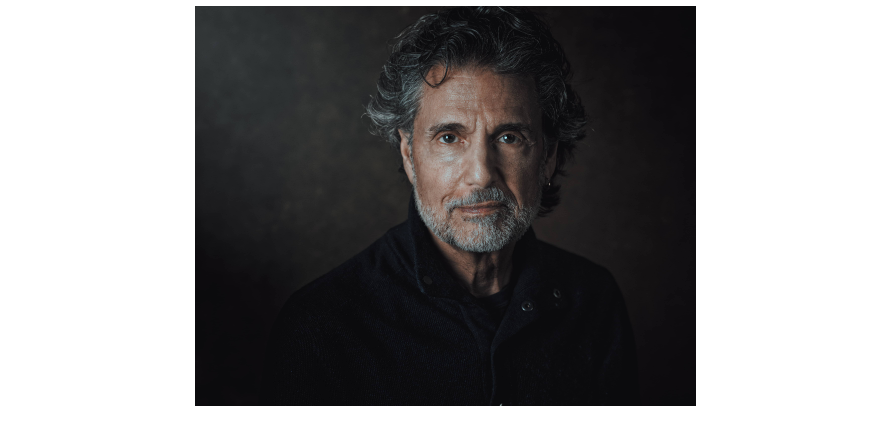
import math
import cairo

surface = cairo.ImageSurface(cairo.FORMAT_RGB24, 891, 445)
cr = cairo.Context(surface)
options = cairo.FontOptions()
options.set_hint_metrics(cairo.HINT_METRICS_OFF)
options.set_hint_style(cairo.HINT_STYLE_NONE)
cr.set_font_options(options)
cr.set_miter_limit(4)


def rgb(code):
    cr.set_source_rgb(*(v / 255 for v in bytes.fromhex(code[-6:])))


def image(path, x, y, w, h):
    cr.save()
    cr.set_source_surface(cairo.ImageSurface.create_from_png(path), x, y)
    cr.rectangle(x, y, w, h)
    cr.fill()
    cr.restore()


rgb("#ffffff")
cr.paint()
image("img/1.png", 195, 6, 501, 400)
surface.write_to_png("page.png")
